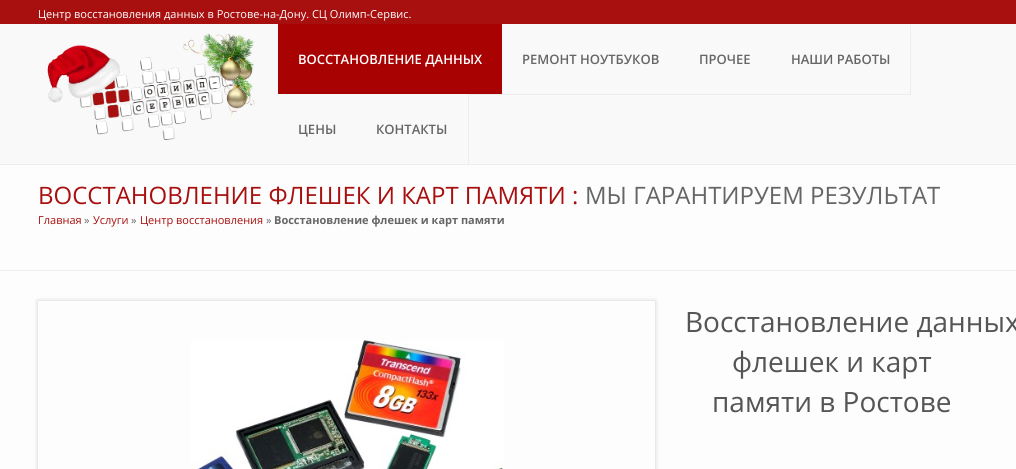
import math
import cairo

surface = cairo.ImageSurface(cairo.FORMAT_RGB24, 1016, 469)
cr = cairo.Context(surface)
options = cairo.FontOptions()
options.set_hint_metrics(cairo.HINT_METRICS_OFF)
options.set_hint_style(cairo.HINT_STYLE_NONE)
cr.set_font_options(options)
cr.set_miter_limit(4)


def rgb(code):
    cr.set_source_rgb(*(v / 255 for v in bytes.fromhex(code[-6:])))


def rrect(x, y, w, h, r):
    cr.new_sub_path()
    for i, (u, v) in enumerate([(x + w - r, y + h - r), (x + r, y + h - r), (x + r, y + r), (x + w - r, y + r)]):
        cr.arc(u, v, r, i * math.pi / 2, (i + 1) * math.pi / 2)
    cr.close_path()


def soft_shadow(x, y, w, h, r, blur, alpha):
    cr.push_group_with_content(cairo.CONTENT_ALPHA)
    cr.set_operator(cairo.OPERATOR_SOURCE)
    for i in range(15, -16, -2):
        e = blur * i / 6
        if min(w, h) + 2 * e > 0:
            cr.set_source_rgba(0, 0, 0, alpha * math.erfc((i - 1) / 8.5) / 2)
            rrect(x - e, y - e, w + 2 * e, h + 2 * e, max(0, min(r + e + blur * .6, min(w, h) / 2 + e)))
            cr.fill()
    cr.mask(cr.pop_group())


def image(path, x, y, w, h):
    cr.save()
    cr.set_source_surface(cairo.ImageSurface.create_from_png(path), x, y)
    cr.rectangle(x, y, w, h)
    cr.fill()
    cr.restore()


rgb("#fdfdfd")
cr.paint()
rgb("#a81010")
cr.rectangle(0, 0, 1016, 24)
cr.fill()
rgb("#f9f9f9")
cr.rectangle(0, 24, 1016, 140)
cr.fill()
image("img/1.png", 47, 33, 208, 107)
rgb("#a80202")
cr.rectangle(278, 24, 224, 70)
cr.fill()
rgb("#ededed")
cr.new_path()
cr.move_to(279, 94)
cr.line_to(279, 95)
cr.line_to(503, 95)
cr.line_to(503, 25)
cr.line_to(502, 25)
cr.line_to(502, 94)
cr.close_path()
cr.fill()
rgb("#f9f9f9")
cr.rectangle(502, 25, 1, 69)
cr.fill()
rgb("#ededed")
cr.new_path()
cr.move_to(503, 94)
cr.line_to(503, 95)
cr.line_to(680, 95)
cr.line_to(680, 25)
cr.line_to(679, 25)
cr.line_to(679, 94)
cr.close_path()
cr.fill()
rgb("#f9f9f9")
cr.rectangle(679, 25, 1, 69)
cr.fill()
rgb("#ededed")
cr.new_path()
cr.move_to(680, 94)
cr.line_to(680, 95)
cr.line_to(772, 95)
cr.line_to(772, 25)
cr.line_to(771, 25)
cr.line_to(771, 94)
cr.close_path()
cr.fill()
rgb("#f9f9f9")
cr.rectangle(771, 25, 1, 69)
cr.fill()
rgb("#ededed")
cr.new_path()
cr.move_to(772, 94)
cr.line_to(772, 95)
cr.line_to(911, 95)
cr.line_to(911, 25)
cr.line_to(910, 25)
cr.line_to(910, 94)
cr.close_path()
cr.fill()
rgb("#f9f9f9")
cr.rectangle(279, 94, 77, 1)
cr.fill()
rgb("#ededed")
cr.rectangle(0, 164, 1016, 1)
cr.fill()
cr.new_path()
cr.move_to(279, 164)
cr.line_to(279, 165)
cr.line_to(357, 165)
cr.line_to(357, 95)
cr.line_to(356, 95)
cr.line_to(356, 164)
cr.close_path()
cr.fill()
rgb("#f9f9f9")
cr.rectangle(356, 94, 112, 70)
cr.fill()
rgb("#ededed")
cr.new_path()
cr.move_to(357, 164)
cr.line_to(357, 165)
cr.line_to(469, 165)
cr.line_to(469, 95)
cr.line_to(468, 95)
cr.line_to(468, 164)
cr.close_path()
cr.fill()
cr.rectangle(0, 270, 1016, 1)
cr.fill()
cr.save()
cr.set_fill_rule(cairo.FILL_RULE_EVEN_ODD)
cr.new_path()
cr.move_to(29, 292)
cr.line_to(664, 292)
cr.line_to(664, 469)
cr.line_to(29, 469)
cr.close_path()
cr.move_to(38, 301)
cr.line_to(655, 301)
cr.line_to(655, 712)
cr.line_to(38, 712)
cr.close_path()
cr.clip()
rgb("#000000")
soft_shadow(38, 301, 617, 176, 0, 2.5, 0.1)
soft_shadow(38, 301, 617, 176, 0, 2.5, 0.1)
cr.restore()
image("img/2.png", 191, 340, 313, 129)
cr.select_font_face("Open Sans")
cr.set_font_size(11)
rgb("#ffffff")
cr.move_to(38, 18)
cr.show_text("Центр восстановления данных в Ростове-на-Дону. СЦ Олимп-Сервис.")
cr.select_font_face("Open Sans SemiBold")
cr.set_font_size(13)
cr.move_to(298, 64)
cr.show_text("ВОССТАНОВЛЕНИЕ ДАННЫХ")
rgb("#666666")
for x, y, s in [
    (522, 64, "РЕМОНТ НОУТБУКОВ"),
    (699, 64, "ПРОЧЕЕ"),
    (791, 64, "НАШИ РАБОТЫ"),
    (298, 134, "ЦЕНЫ"),
    (376, 134, "КОНТАКТЫ"),
]:
    cr.move_to(x, y)
    cr.show_text(s)
cr.select_font_face("Open Sans")
cr.set_font_size(24)
rgb("#a81010")
cr.move_to(38, 204)
cr.show_text("ВОССТАНОВЛЕНИЕ ФЛЕШЕК И КАРТ ПАМЯТИ :")
rgb("#666666")
cr.move_to(585, 204)
cr.show_text("МЫ ГАРАНТИРУЕМ РЕЗУЛЬТАТ")
cr.set_font_size(11)
rgb("#a81010")
cr.move_to(38, 224)
cr.show_text("Главная")
rgb("#666666")
cr.move_to(84, 224)
cr.show_text("»")
rgb("#a81010")
cr.move_to(93, 224)
cr.show_text("Услуги")
rgb("#666666")
cr.move_to(131, 224)
cr.show_text("»")
rgb("#a81010")
cr.move_to(140, 224)
cr.show_text("Центр восстановления")
rgb("#666666")
cr.move_to(266, 224)
cr.show_text("»")
cr.select_font_face("Open Sans", cairo.FONT_SLANT_NORMAL, cairo.FONT_WEIGHT_BOLD)
cr.move_to(274, 224)
cr.show_text("Восстановление флешек и карт памяти")
cr.select_font_face("Open Sans")
cr.set_font_size(28)
rgb("#555555")
for x, y, s in [
    (685, 332, "Восстановление данных"),
    (732, 372, "флешек и карт"),
    (712, 412, "памяти в Ростове"),
]:
    cr.move_to(x, y)
    cr.show_text(s)
surface.write_to_png("page.png")
